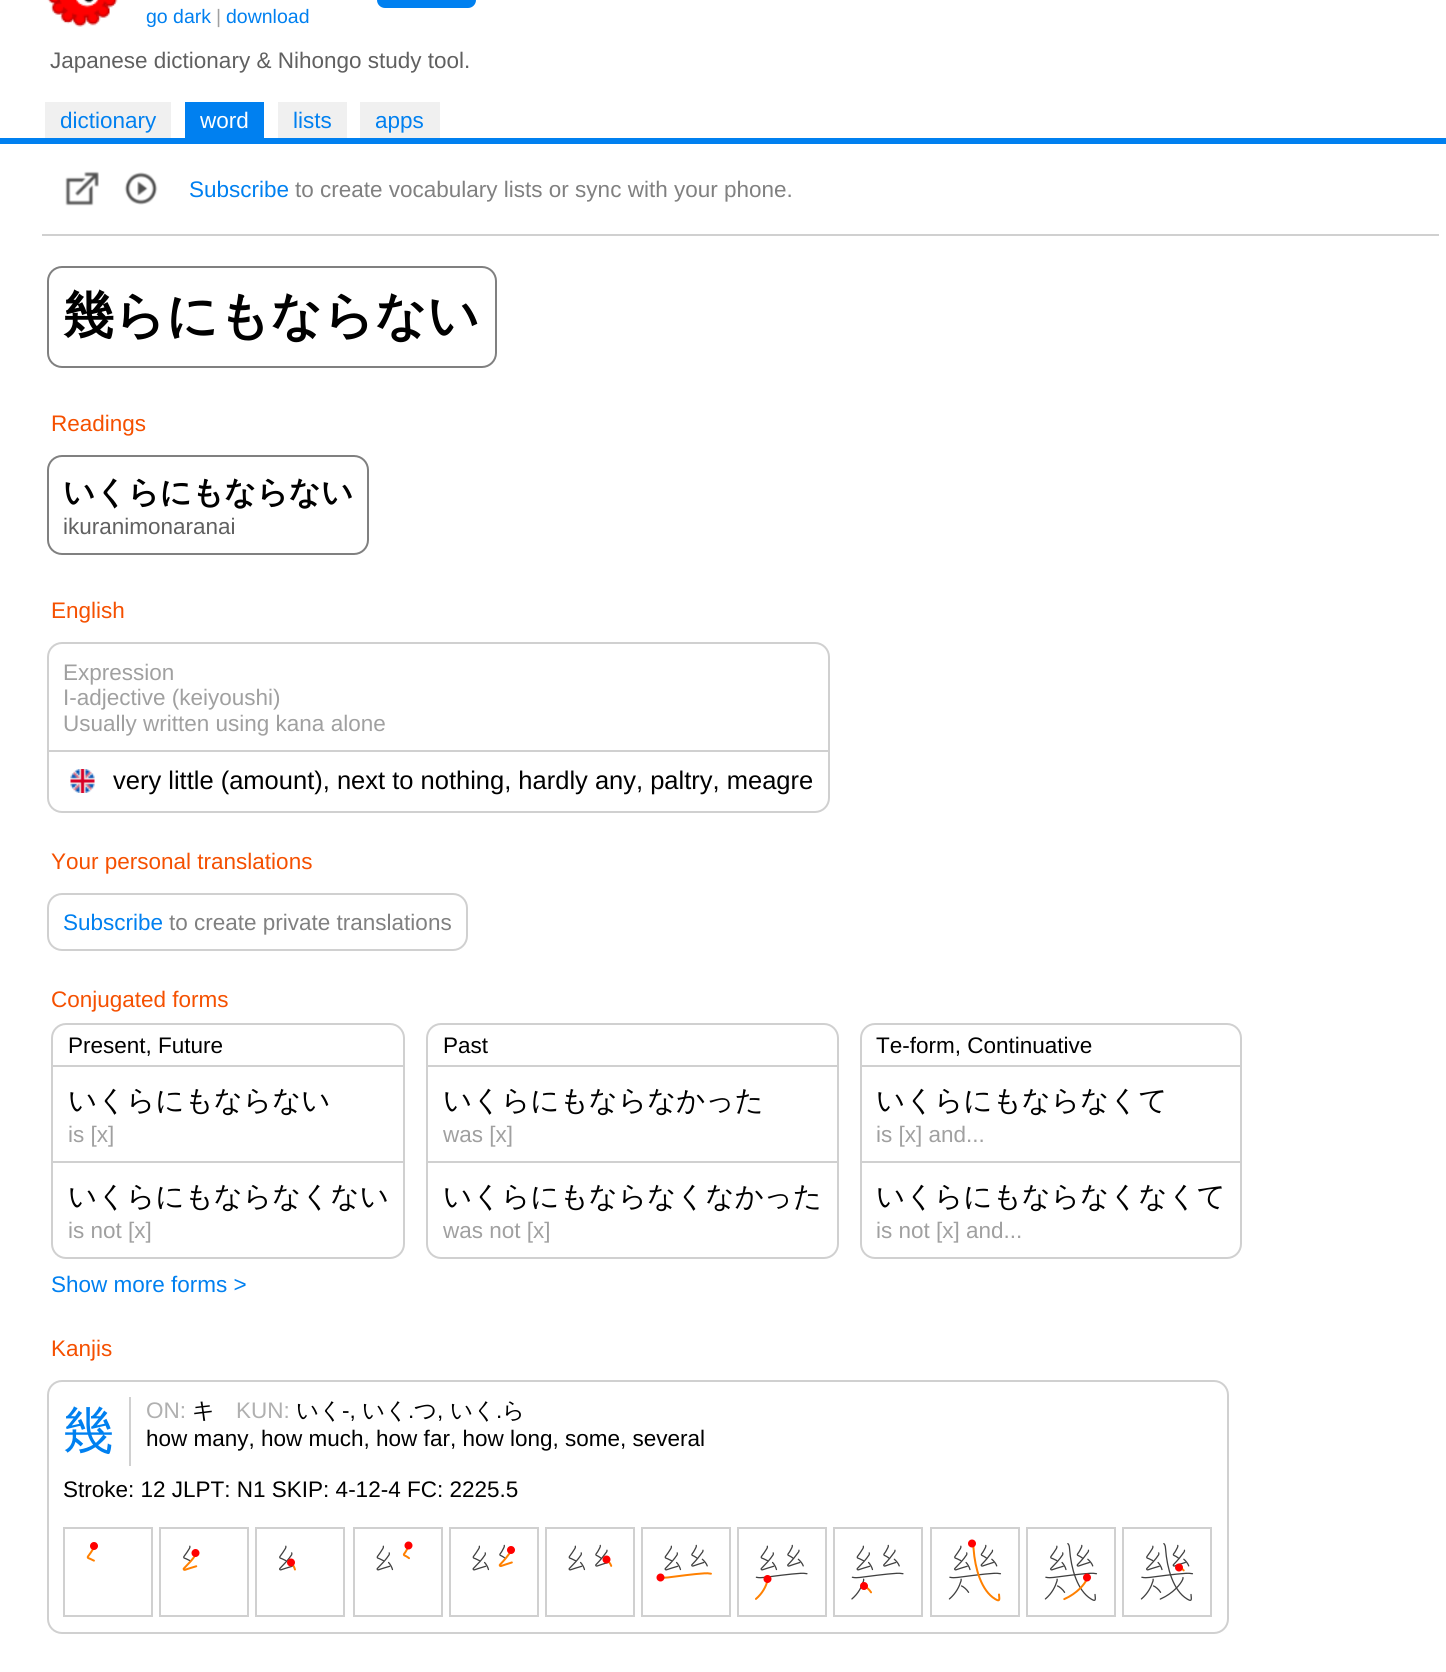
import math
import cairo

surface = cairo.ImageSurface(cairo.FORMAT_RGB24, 1446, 1672)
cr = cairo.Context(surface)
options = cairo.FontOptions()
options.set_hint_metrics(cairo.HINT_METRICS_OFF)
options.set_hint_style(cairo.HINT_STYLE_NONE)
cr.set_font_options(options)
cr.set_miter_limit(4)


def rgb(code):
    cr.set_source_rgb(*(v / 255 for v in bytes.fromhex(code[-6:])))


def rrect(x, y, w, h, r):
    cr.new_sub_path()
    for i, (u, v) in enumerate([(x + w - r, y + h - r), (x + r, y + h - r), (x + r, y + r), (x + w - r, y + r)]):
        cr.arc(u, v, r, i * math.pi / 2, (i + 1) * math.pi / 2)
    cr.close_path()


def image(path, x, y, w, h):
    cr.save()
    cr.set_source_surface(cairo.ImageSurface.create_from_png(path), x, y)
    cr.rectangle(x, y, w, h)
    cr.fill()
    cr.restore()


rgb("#ffffff")
cr.paint()
rgb("#0080f0")
cr.rectangle(0, 138, 1446, 6)
cr.fill()
rrect(377, -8, 99, 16, 8)
cr.fill()
image("img/1.png", 47, 0, 71, 27)
for x, y, w, h, color in [
    (45, 102, 126, 36, "#f0f0f0"),
    (185, 102, 79, 36, "#0080f0"),
    (278, 102, 69, 36, "#f0f0f0"),
    (360, 102, 80, 36, "#f0f0f0"),
    (42, 234, 1397, 2, "#d0d0d0"),
]:
    rgb(color)
    cr.rectangle(x, y, w, h)
    cr.fill()
image("img/2.png", 65, 171, 34, 35)
image("img/3.png", 124, 172, 34, 33)
rrect(48, 267, 448, 100, 14)
rgb("#808080")
cr.stroke()
rrect(48, 456, 320, 98, 14)
cr.stroke()
rrect(48, 643, 781, 169, 14)
rgb("#d0d0d0")
cr.stroke()
cr.rectangle(48, 750, 780, 2)
cr.fill()
image("img/4.png", 70, 769, 25, 24)
rrect(48, 894, 419, 56, 14)
cr.stroke()
rrect(52, 1024, 352, 234, 14)
cr.stroke()
cr.rectangle(53, 1065, 351, 2)
cr.fill()
cr.rectangle(53, 1161, 351, 2)
cr.fill()
rrect(427, 1024, 411, 234, 14)
cr.stroke()
cr.rectangle(428, 1065, 409, 2)
cr.fill()
cr.rectangle(428, 1161, 409, 2)
cr.fill()
rrect(861, 1024, 380, 234, 14)
cr.stroke()
cr.rectangle(861, 1065, 380, 2)
cr.fill()
cr.rectangle(861, 1161, 380, 2)
cr.fill()
rrect(48, 1381, 1180, 252, 14)
cr.stroke()
cr.rectangle(129, 1397, 2, 69)
cr.fill()
cr.rectangle(64, 1528, 88, 88)
cr.stroke()
image("img/5.png", 86, 1542, 12, 20)
cr.rectangle(160, 1528, 88, 88)
cr.stroke()
image("img/6.png", 182, 1545, 18, 26)
cr.rectangle(256, 1528, 88, 88)
cr.stroke()
image("img/7.png", 279, 1545, 17, 26)
cr.rectangle(354, 1528, 88, 88)
cr.stroke()
image("img/8.png", 376, 1541, 37, 30)
cr.rectangle(450, 1528, 88, 88)
cr.stroke()
image("img/9.png", 472, 1544, 43, 27)
cr.rectangle(546, 1528, 88, 88)
cr.stroke()
image("img/10.png", 568, 1544, 45, 27)
cr.rectangle(642, 1528, 88, 88)
cr.stroke()
image("img/11.png", 656, 1544, 56, 38)
cr.rectangle(738, 1528, 88, 88)
cr.stroke()
image("img/12.png", 755, 1544, 53, 56)
cr.rectangle(834, 1528, 88, 88)
cr.stroke()
image("img/13.png", 851, 1544, 53, 56)
cr.rectangle(931, 1528, 88, 88)
cr.stroke()
image("img/14.png", 948, 1539, 54, 63)
cr.rectangle(1027, 1528, 88, 88)
cr.stroke()
image("img/15.png", 1044, 1543, 54, 58)
cr.rectangle(1123, 1528, 88, 88)
cr.stroke()
image("img/16.png", 1140, 1543, 54, 58)
cr.select_font_face("Liberation Sans")
cr.set_font_size(19.5)
rgb("#0080f0")
cr.move_to(146, 23)
cr.show_text("go dark")
rgb("#a0a0a0")
cr.move_to(216, 23)
cr.show_text("|")
rgb("#0080f0")
cr.move_to(226, 23)
cr.show_text("download")
cr.set_font_size(22.5)
rgb("#606060")
cr.move_to(50, 68)
cr.show_text("Japanese dictionary & Nihongo study tool.")
rgb("#0080f0")
cr.move_to(60, 128)
cr.show_text("dictionary")
rgb("#ffffff")
cr.move_to(200, 128)
cr.show_text("word")
rgb("#0080f0")
for x, y, s in [
    (293, 128, "lists"),
    (375, 128, "apps"),
    (189, 197, "Subscribe"),
]:
    cr.move_to(x, y)
    cr.show_text(s)
rgb("#808080")
cr.move_to(295, 197)
cr.show_text("to create vocabulary lists or sync with your phone.")
cr.select_font_face("WenQuanYi Zen Hei", cairo.FONT_SLANT_NORMAL, cairo.FONT_WEIGHT_BOLD)
cr.set_font_size(51)
rgb("#000000")
cr.move_to(63, 333)
cr.show_text("幾らにもならない")
cr.select_font_face("Liberation Sans")
cr.set_font_size(22.5)
rgb("#f55000")
cr.move_to(51, 431)
cr.show_text("Readings")
cr.select_font_face("WenQuanYi Zen Hei", cairo.FONT_SLANT_NORMAL, cairo.FONT_WEIGHT_BOLD)
cr.set_font_size(31.5)
rgb("#000000")
cr.move_to(63, 503)
cr.show_text("いくらにもならない")
cr.select_font_face("Liberation Sans")
cr.set_font_size(22.5)
rgb("#606060")
cr.move_to(63, 534)
cr.show_text("ikuranimonaranai")
rgb("#f55000")
cr.move_to(51, 618)
cr.show_text("English")
rgb("#a0a0a0")
for x, y, s in [
    (63, 680, "Expression"),
    (63, 705, "I-adjective (keiyoushi)"),
    (63, 731, "Usually written using kana alone"),
]:
    cr.move_to(x, y)
    cr.show_text(s)
cr.set_font_size(25.5)
rgb("#000000")
cr.move_to(113, 789)
cr.show_text("very little (amount), next to nothing, hardly any, paltry, meagre")
cr.set_font_size(22.5)
rgb("#f55000")
cr.move_to(51, 869)
cr.show_text("Your personal translations")
rgb("#0080f0")
cr.move_to(63, 930)
cr.show_text("Subscribe")
rgb("#808080")
cr.move_to(169, 930)
cr.show_text("to create private translations")
rgb("#f55000")
cr.move_to(51, 1007)
cr.show_text("Conjugated forms")
rgb("#000000")
cr.move_to(68, 1053)
cr.show_text("Present, Future")
cr.select_font_face("WenQuanYi Zen Hei Medium")
cr.set_font_size(28.5)
cr.move_to(68, 1110)
cr.show_text("いくらにもならない")
cr.select_font_face("Liberation Sans")
cr.set_font_size(22.5)
rgb("#a0a0a0")
cr.move_to(68, 1142)
cr.show_text("is [x]")
cr.select_font_face("WenQuanYi Zen Hei Medium")
cr.set_font_size(28.5)
rgb("#000000")
cr.move_to(68, 1206)
cr.show_text("いくらにもならなくない")
cr.select_font_face("Liberation Sans")
cr.set_font_size(22.5)
rgb("#a0a0a0")
cr.move_to(68, 1238)
cr.show_text("is not [x]")
rgb("#000000")
cr.move_to(443, 1053)
cr.show_text("Past")
cr.select_font_face("WenQuanYi Zen Hei Medium")
cr.set_font_size(28.5)
cr.move_to(443, 1110)
cr.show_text("いくらにもならなかった")
cr.select_font_face("Liberation Sans")
cr.set_font_size(22.5)
rgb("#a0a0a0")
cr.move_to(443, 1142)
cr.show_text("was [x]")
cr.select_font_face("WenQuanYi Zen Hei Medium")
cr.set_font_size(28.5)
rgb("#000000")
cr.move_to(443, 1206)
cr.show_text("いくらにもならなくなかった")
cr.select_font_face("Liberation Sans")
cr.set_font_size(22.5)
rgb("#a0a0a0")
cr.move_to(443, 1238)
cr.show_text("was not [x]")
rgb("#000000")
cr.move_to(876, 1053)
cr.show_text("Te-form, Continuative")
cr.select_font_face("WenQuanYi Zen Hei Medium")
cr.set_font_size(28.5)
cr.move_to(876, 1110)
cr.show_text("いくらにもならなくて")
cr.select_font_face("Liberation Sans")
cr.set_font_size(22.5)
rgb("#a0a0a0")
cr.move_to(876, 1142)
cr.show_text("is [x] and...")
cr.select_font_face("WenQuanYi Zen Hei Medium")
cr.set_font_size(28.5)
rgb("#000000")
cr.move_to(876, 1206)
cr.show_text("いくらにもならなくなくて")
cr.select_font_face("Liberation Sans")
cr.set_font_size(22.5)
rgb("#a0a0a0")
cr.move_to(876, 1238)
cr.show_text("is not [x] and...")
rgb("#0080f0")
cr.move_to(51, 1292)
cr.show_text("Show more forms >")
rgb("#f55000")
cr.move_to(51, 1356)
cr.show_text("Kanjis")
cr.select_font_face("WenQuanYi Zen Hei Medium")
cr.set_font_size(51)
rgb("#0080f0")
cr.move_to(63, 1448)
cr.show_text("幾")
cr.select_font_face("Liberation Sans")
cr.set_font_size(22.5)
rgb("#b0b0b0")
cr.move_to(146, 1418)
cr.show_text("ON:")
cr.select_font_face("WenQuanYi Zen Hei Medium")
rgb("#000000")
cr.move_to(192, 1418)
cr.show_text("キ")
cr.select_font_face("Liberation Sans")
rgb("#b0b0b0")
cr.move_to(236, 1418)
cr.show_text("KUN:")
cr.select_font_face("WenQuanYi Zen Hei Medium")
rgb("#000000")
cr.move_to(296, 1418)
cr.show_text("いく")
cr.select_font_face("Liberation Sans")
cr.move_to(342, 1418)
cr.show_text("-,")
cr.select_font_face("WenQuanYi Zen Hei Medium")
cr.move_to(362, 1418)
cr.show_text("いく")
cr.select_font_face("Liberation Sans")
cr.move_to(408, 1418)
cr.show_text(".")
cr.select_font_face("WenQuanYi Zen Hei Medium")
cr.move_to(414, 1418)
cr.show_text("つ")
cr.select_font_face("Liberation Sans")
cr.move_to(437, 1418)
cr.show_text(",")
cr.select_font_face("WenQuanYi Zen Hei Medium")
cr.move_to(450, 1418)
cr.show_text("いく")
cr.select_font_face("Liberation Sans")
cr.move_to(496, 1418)
cr.show_text(".")
cr.select_font_face("WenQuanYi Zen Hei Medium")
cr.move_to(502, 1418)
cr.show_text("ら")
cr.select_font_face("Liberation Sans")
cr.move_to(146, 1446)
cr.show_text("how many, how much, how far, how long, some, several")
cr.move_to(63, 1497)
cr.show_text("Stroke: 12 JLPT: N1 SKIP: 4-12-4 FC: 2225.5")
surface.write_to_png("page.png")
